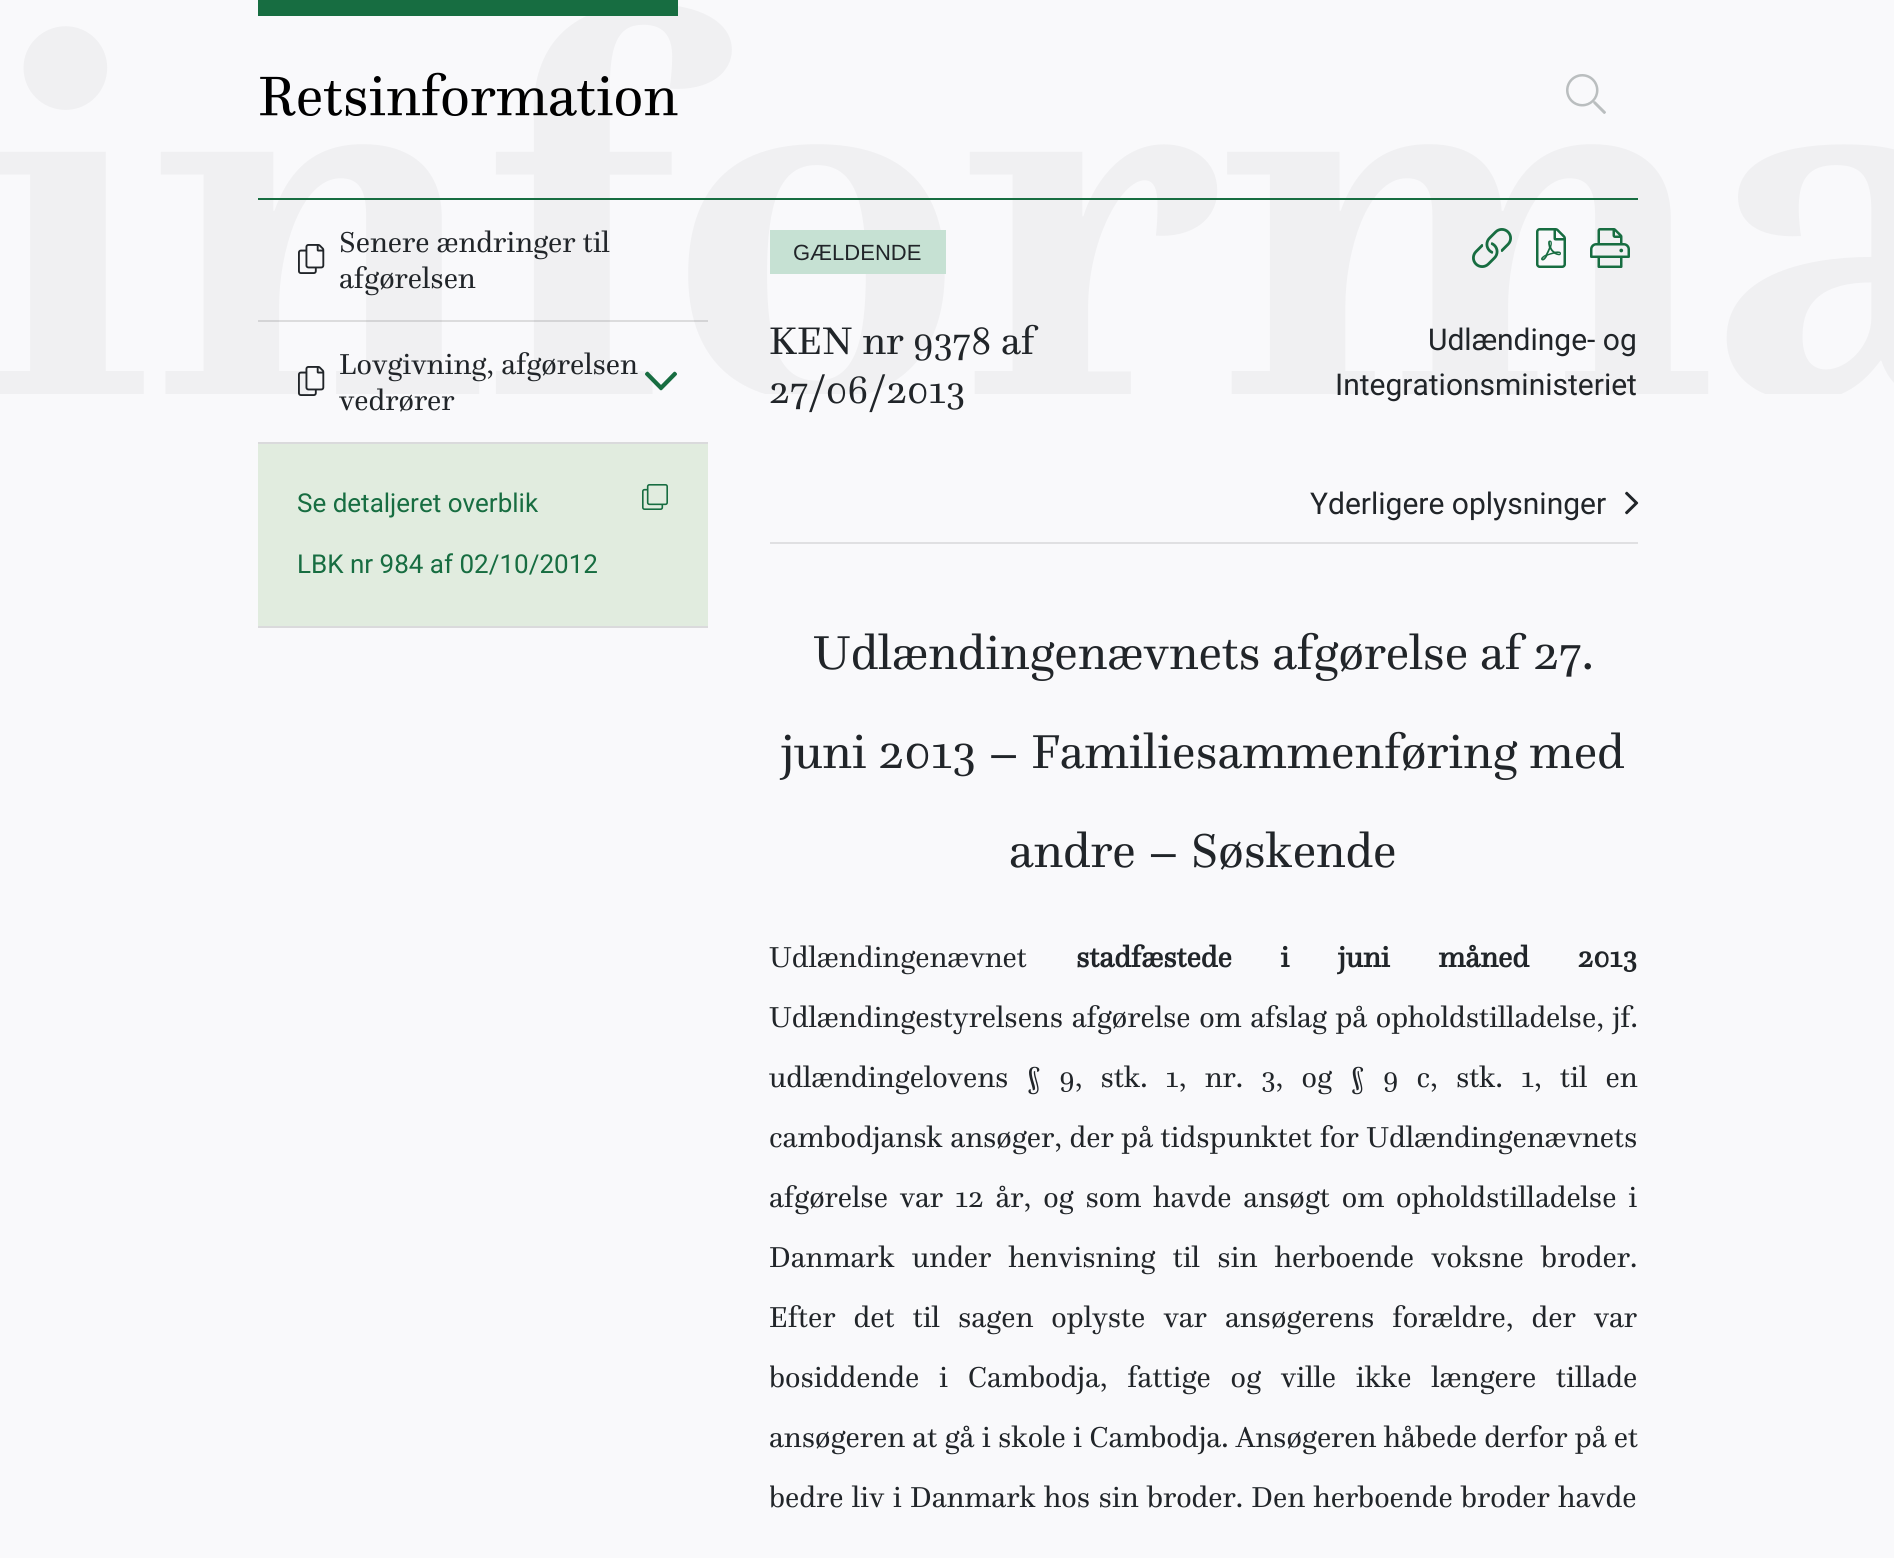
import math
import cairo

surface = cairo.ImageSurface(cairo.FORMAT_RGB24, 1894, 1558)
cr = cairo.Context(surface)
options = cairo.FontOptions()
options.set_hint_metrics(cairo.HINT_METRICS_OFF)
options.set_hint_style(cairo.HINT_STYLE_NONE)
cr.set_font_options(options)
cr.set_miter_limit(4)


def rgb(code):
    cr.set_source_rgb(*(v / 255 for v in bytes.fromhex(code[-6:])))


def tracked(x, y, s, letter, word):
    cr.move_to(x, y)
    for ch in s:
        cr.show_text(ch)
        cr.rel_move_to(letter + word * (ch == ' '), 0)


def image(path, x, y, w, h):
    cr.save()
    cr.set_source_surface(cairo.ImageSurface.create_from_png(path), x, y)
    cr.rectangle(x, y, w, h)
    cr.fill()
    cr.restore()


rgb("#f9f9fb")
cr.paint()
image("img/1.png", 0, 6, 1894, 388)
rgb("#176d41")
cr.rectangle(258, 198, 1380, 2)
cr.fill()
cr.rectangle(258, 0, 420, 16)
cr.fill()
image("img/2.png", 260, 72, 418, 44)
image("img/3.png", 1566, 74, 40, 40)
cr.set_source_rgba(0, 0, 0, 0.12)
cr.rectangle(258, 320, 450, 2)
cr.fill()
image("img/4.png", 298, 244, 27, 30)
rgb("#dadadc")
cr.rectangle(258, 626, 450, 2)
cr.fill()
cr.rectangle(258, 442, 450, 2)
cr.fill()
image("img/5.png", 298, 366, 27, 30)
image("img/6.png", 645, 371, 32, 20)
rgb("#e1ecdf")
cr.rectangle(258, 444, 450, 182)
cr.fill()
image("img/7.png", 642, 484, 26, 26)
rgb("#c6e1d3")
cr.rectangle(770, 230, 176, 44)
cr.fill()
image("img/8.png", 1472, 228, 40, 40)
image("img/9.png", 1536, 228, 30, 40)
image("img/10.png", 1590, 228, 40, 40)
image("img/11.png", 1625, 491, 14, 24)
rgb("#e0e0e2")
cr.rectangle(770, 542, 868, 2)
cr.fill()
cr.select_font_face("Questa")
cr.set_font_size(30)
rgb("#212529")
for x, y, s in [
    (339, 252, "Senere ændringer til"),
    (339, 288, "afgørelsen"),
    (339, 374, "Lovgivning, afgørelsen"),
    (339, 410, "vedrører"),
]:
    cr.move_to(x, y)
    cr.show_text(s)
cr.select_font_face("Roboto")
cr.set_font_size(26)
rgb("#176d41")
cr.move_to(297, 512)
cr.show_text("Se detaljeret overblik")
cr.move_to(297, 573)
cr.show_text("LBK nr 984 af 02/10/2012")
cr.select_font_face("Liberation Sans")
cr.set_font_size(22)
rgb("#212529")
cr.move_to(793, 260)
cr.show_text("GÆLDENDE")
cr.select_font_face("Questa")
cr.set_font_size(40)
cr.move_to(769, 354)
cr.show_text("KEN nr 9378 af")
cr.move_to(769, 403)
cr.show_text("27/06/2013")
cr.select_font_face("Roboto")
cr.set_font_size(30)
for x, y, s in [
    (1428, 350, "Udlændinge- og"),
    (1335, 395, "Integrationsministeriet"),
    (1310, 514, "Yderligere oplysninger"),
]:
    cr.move_to(x, y)
    cr.show_text(s)
cr.select_font_face("Questa")
cr.set_font_size(49.5)
for x, y, s in [
    (813, 669, "Udlændingenævnets afgørelse af 27."),
    (781, 768, "juni 2013 – Familiesammenføring med"),
    (1009, 867, "andre – Søskende"),
]:
    cr.move_to(x, y)
    cr.show_text(s)
cr.set_font_size(30)
cr.move_to(769, 967)
cr.show_text("Udlændingenævnet")
cr.select_font_face("Questa", cairo.FONT_SLANT_NORMAL, cairo.FONT_WEIGHT_BOLD)
tracked(1076, 967, "stadfæstede i juni måned 2013", 0, 41.5)
cr.select_font_face("Questa")
tracked(769, 1027, "Udlændingestyrelsens afgørelse om afslag på opholdstilladelse, jf.", 0, 1.5)
tracked(769, 1087, "udlændingelovens § 9, stk. 1, nr. 3, og § 9 c, stk. 1, til en", 0, 11.1)
tracked(769, 1147, "cambodjansk ansøger, der på tidspunktet for Udlændingenævnets", 0, 0.5)
tracked(769, 1207, "afgørelse var 12 år, og som havde ansøgt om opholdstilladelse i", 0, 4.75)
tracked(769, 1267, "Danmark under henvisning til sin herboende voksne broder.", 0, 10.25)
tracked(769, 1327, "Efter det til sagen oplyste var ansøgerens forældre, der var", 0, 11)
cr.save()
cr.rectangle(770, 576, 868, 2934)
cr.clip()
tracked(769, 1387, "bosiddende i Cambodja, fattige og ville ikke længere tillade", 0, 12.75)
cr.restore()
tracked(769, 1447, "ansøgeren at gå i skole i Cambodja. Ansøgeren håbede derfor på et", 0, 0.25)
cr.save()
cr.rectangle(770, 576, 868, 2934)
cr.clip()
tracked(769, 1507, "bedre liv i Danmark hos sin broder. Den herboende broder havde", 0, 1.25)
cr.restore()
surface.write_to_png("page.png")
